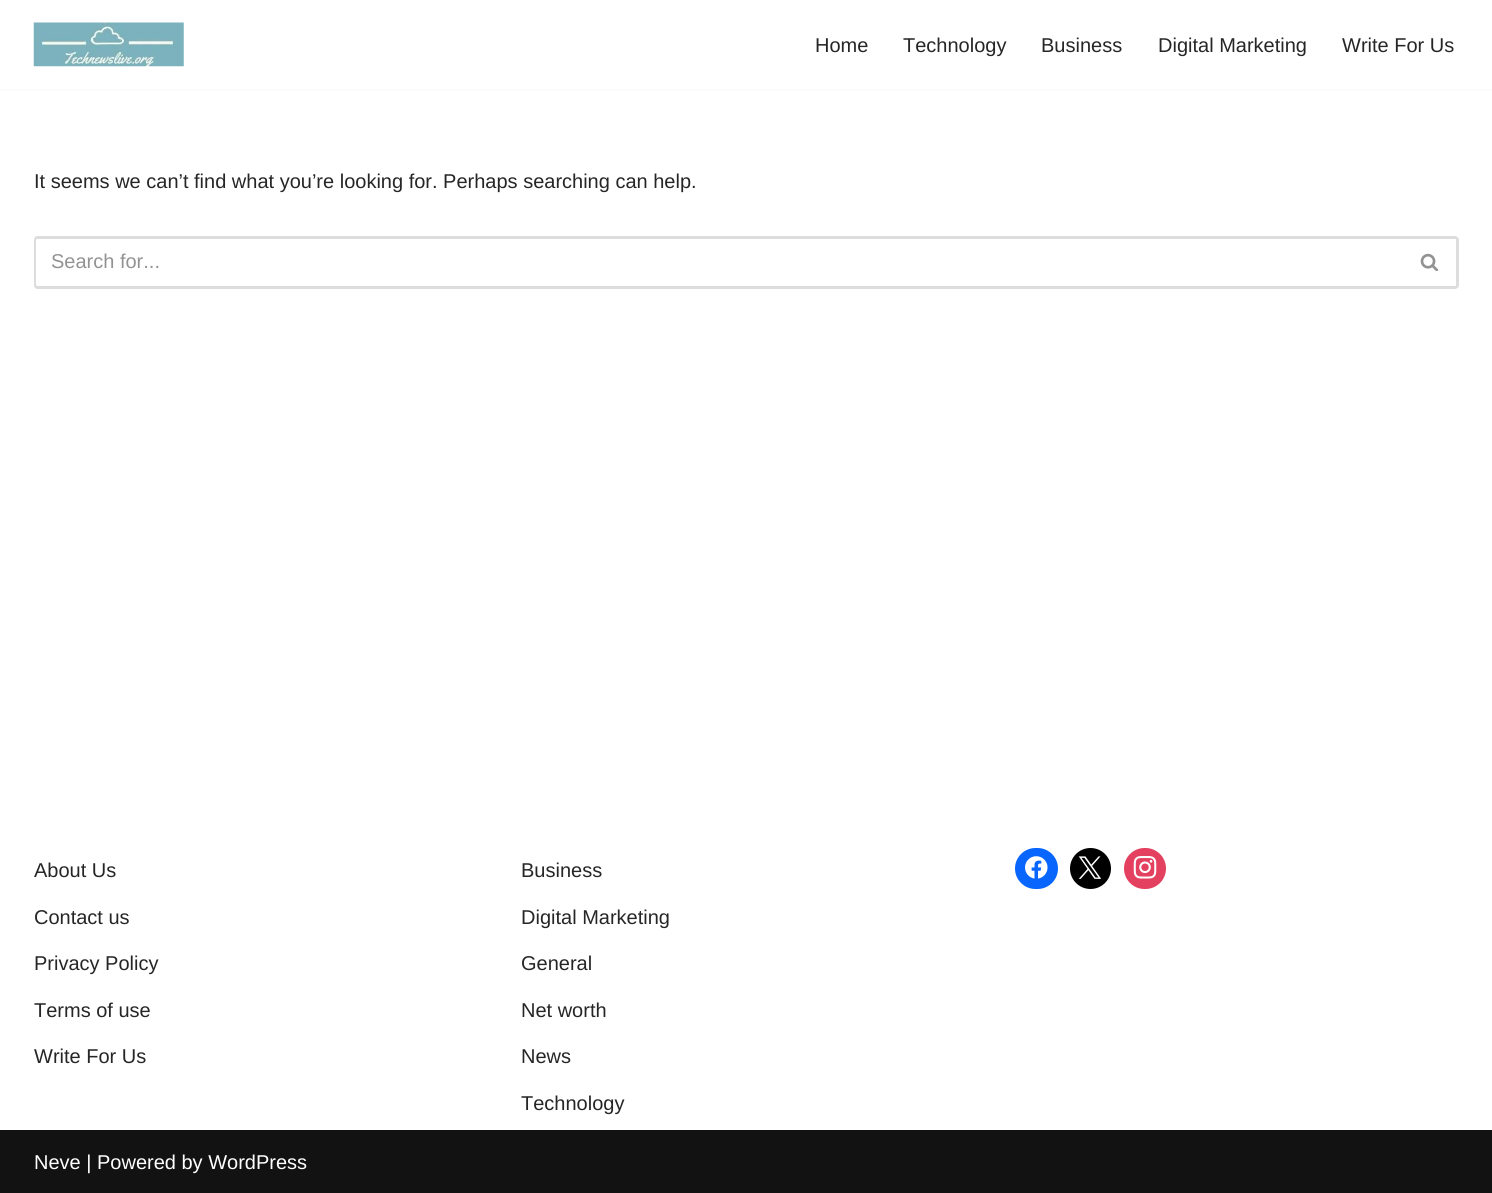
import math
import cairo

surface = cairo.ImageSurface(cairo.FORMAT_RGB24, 1492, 1193)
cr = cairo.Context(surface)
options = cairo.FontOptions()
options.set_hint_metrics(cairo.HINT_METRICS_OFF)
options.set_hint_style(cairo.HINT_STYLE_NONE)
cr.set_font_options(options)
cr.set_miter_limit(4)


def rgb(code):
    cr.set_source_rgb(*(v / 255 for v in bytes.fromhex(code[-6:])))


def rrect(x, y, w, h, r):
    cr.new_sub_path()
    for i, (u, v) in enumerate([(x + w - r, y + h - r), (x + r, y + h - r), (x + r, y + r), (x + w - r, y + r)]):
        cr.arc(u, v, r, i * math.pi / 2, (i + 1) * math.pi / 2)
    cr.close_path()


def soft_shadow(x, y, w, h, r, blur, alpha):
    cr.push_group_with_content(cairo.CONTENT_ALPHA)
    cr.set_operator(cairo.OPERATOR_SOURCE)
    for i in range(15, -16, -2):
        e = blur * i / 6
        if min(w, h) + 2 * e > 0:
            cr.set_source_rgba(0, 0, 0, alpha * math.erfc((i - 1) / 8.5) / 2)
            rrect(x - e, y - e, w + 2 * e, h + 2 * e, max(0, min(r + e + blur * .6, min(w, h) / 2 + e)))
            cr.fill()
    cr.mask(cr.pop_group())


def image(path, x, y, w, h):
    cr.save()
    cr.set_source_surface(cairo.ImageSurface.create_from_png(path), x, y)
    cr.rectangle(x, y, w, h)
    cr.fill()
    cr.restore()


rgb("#ffffff")
cr.paint()
rgb("#000000")
soft_shadow(0, -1, 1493, 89, 0, 2, 0.1)
rgb("#ffffff")
cr.rectangle(0, 0, 1492, 89)
cr.fill()
image("img/1.png", 33, 22, 151, 45)
rgb("#dddddd")
cr.set_fill_rule(cairo.FILL_RULE_EVEN_ODD)
cr.new_path()
cr.move_to(38, 236)
cr.line_to(1402, 236)
cr.line_to(1402, 289)
cr.line_to(38, 289)
cr.curve_to(35, 289, 34, 287, 34, 285)
cr.line_to(34, 240)
cr.curve_to(34, 238, 35, 236, 38, 236)
cr.close_path()
cr.move_to(38, 239)
cr.line_to(1402, 239)
cr.line_to(1402, 286)
cr.line_to(38, 286)
cr.curve_to(37, 286, 36, 286, 36, 285)
cr.line_to(36, 240)
cr.curve_to(36, 239, 37, 239, 38, 239)
cr.close_path()
cr.fill()
cr.new_path()
cr.move_to(1402, 236)
cr.line_to(1455, 236)
cr.curve_to(1457, 236, 1459, 238, 1459, 240)
cr.line_to(1459, 285)
cr.curve_to(1459, 287, 1457, 289, 1455, 289)
cr.line_to(1402, 289)
cr.close_path()
cr.move_to(1402, 239)
cr.line_to(1455, 239)
cr.curve_to(1456, 239, 1456, 239, 1456, 240)
cr.line_to(1456, 285)
cr.curve_to(1456, 286, 1456, 286, 1455, 286)
cr.line_to(1402, 286)
cr.close_path()
cr.fill()
image("img/2.png", 1420, 253, 18, 18)
rgb("#0866ff")
rrect(1015, 848, 43, 41, 20.5)
cr.fill()
image("img/3.png", 1025, 856, 23, 23)
rgb("#000000")
cr.arc(1090.5, 868.5, 20.5, 0, 2 * math.pi)
cr.fill()
image("img/4.png", 1078, 856, 24, 23)
rgb("#e4405f")
rrect(1124, 848, 42, 41, 20.5)
cr.fill()
image("img/5.png", 1133, 856, 24, 23)
rgb("#121212")
cr.rectangle(0, 1130, 1492, 63)
cr.fill()
cr.select_font_face("Liberation Sans")
cr.set_font_size(20)
rgb("#272626")
for x, y, s in [
    (815, 52, "Home"),
    (903, 52, "Technology"),
    (1041, 52, "Business"),
    (1158, 52, "Digital Marketing"),
    (1342, 52, "Write For Us"),
    (34, 188, "It seems we can’t find what you’re looking for. Perhaps searching can help."),
]:
    cr.move_to(x, y)
    cr.show_text(s)
rgb("#939393")
cr.move_to(51, 268)
cr.show_text("Search for...")
rgb("#272626")
for x, y, s in [
    (34, 877, "About Us"),
    (34, 924, "Contact us"),
    (34, 970, "Privacy Policy"),
    (34, 1017, "Terms of use"),
    (34, 1063, "Write For Us"),
    (521, 877, "Business"),
    (521, 924, "Digital Marketing"),
    (521, 970, "General"),
    (521, 1017, "Net worth"),
    (521, 1063, "News"),
    (521, 1110, "Technology"),
]:
    cr.move_to(x, y)
    cr.show_text(s)
rgb("#ffffff")
cr.move_to(34, 1169)
cr.show_text("Neve | Powered by WordPress")
surface.write_to_png("page.png")
